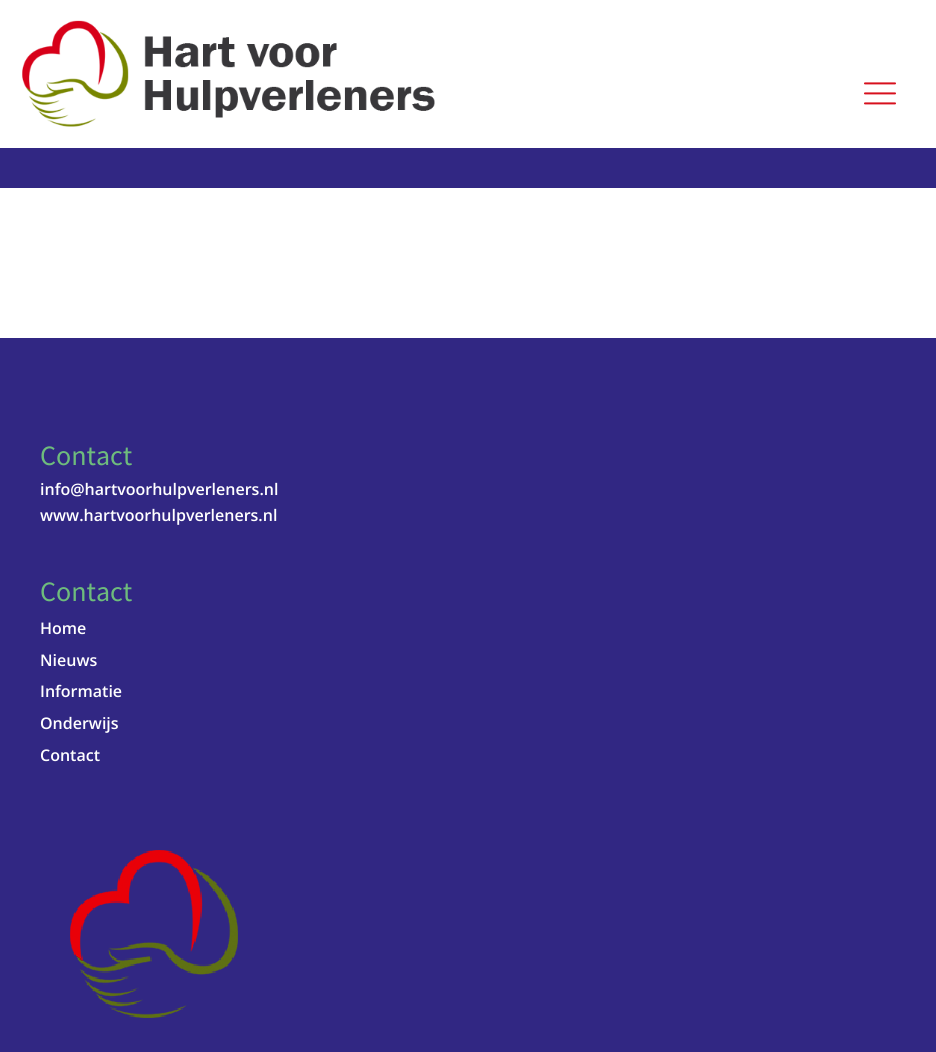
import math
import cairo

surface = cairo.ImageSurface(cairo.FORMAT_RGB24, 936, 1052)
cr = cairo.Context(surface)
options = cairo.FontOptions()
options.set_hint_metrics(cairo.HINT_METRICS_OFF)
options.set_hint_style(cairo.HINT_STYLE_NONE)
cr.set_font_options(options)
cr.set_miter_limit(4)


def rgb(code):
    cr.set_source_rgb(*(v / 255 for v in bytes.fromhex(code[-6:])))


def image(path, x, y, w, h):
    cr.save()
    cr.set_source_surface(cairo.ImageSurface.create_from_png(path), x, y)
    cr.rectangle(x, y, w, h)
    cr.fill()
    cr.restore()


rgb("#ffffff")
cr.paint()
rgb("#312783")
cr.rectangle(0, 148, 936, 40)
cr.fill()
image("img/1.png", 22, 20, 413, 107)
image("img/2.png", 864, 82, 32, 23)
cr.rectangle(0, 338, 936, 714)
cr.fill()
image("img/3.png", 70, 850, 168, 168)
cr.select_font_face("Source Sans Pro")
cr.set_font_size(28)
rgb("#6ebc7c")
cr.move_to(40, 465)
cr.show_text("Contact")
cr.select_font_face("Open Sans SemiBold")
cr.set_font_size(16)
rgb("#ffffff")
cr.move_to(40, 495)
cr.show_text("info@hartvoorhulpverleners.nl")
cr.move_to(40, 521)
cr.show_text("www.hartvoorhulpverleners.nl")
cr.select_font_face("Source Sans Pro")
cr.set_font_size(28)
rgb("#6ebc7c")
cr.move_to(40, 601)
cr.show_text("Contact")
cr.select_font_face("Open Sans SemiBold")
cr.set_font_size(16)
rgb("#ffffff")
for x, y, s in [
    (40, 634, "Home"),
    (40, 666, "Nieuws"),
    (40, 697, "Informatie"),
    (40, 729, "Onderwijs"),
    (40, 761, "Contact"),
]:
    cr.move_to(x, y)
    cr.show_text(s)
surface.write_to_png("page.png")
